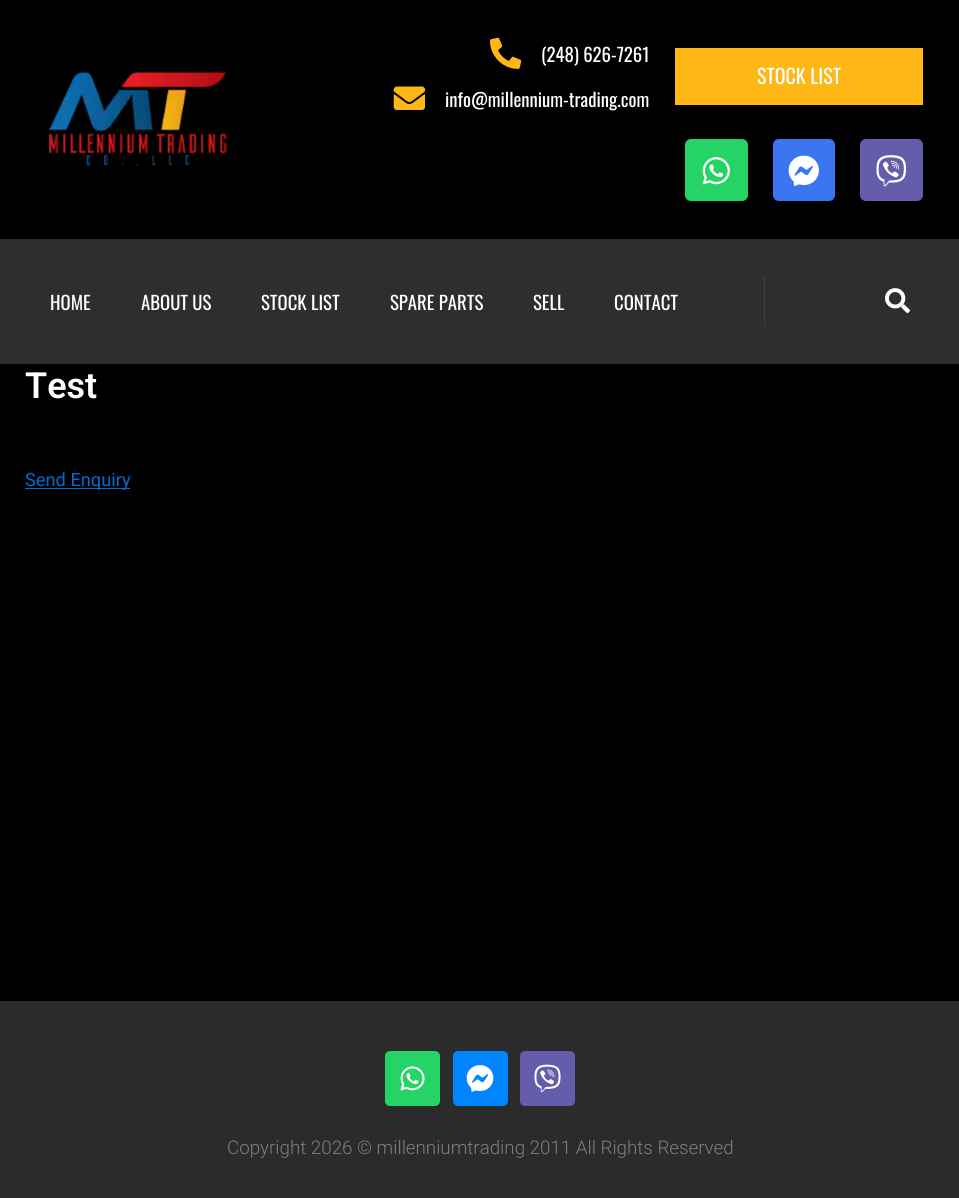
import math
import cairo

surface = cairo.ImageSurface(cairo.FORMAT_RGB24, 959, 1198)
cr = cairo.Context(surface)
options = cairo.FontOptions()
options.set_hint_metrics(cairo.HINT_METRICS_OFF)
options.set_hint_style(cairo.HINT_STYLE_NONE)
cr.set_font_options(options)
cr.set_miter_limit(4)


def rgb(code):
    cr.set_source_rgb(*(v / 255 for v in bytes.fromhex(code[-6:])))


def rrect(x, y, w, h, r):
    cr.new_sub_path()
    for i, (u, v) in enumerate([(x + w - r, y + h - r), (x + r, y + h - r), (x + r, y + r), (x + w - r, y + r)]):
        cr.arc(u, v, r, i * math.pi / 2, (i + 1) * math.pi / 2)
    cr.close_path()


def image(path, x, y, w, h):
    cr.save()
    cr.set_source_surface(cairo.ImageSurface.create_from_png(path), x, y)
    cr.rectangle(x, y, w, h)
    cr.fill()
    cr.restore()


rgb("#000000")
cr.paint()
image("img/1.png", 49, 72, 178, 95)
image("img/2.png", 490, 37, 32, 32)
image("img/3.png", 393, 86, 32, 24)
rgb("#ffb716")
cr.rectangle(675, 48, 248, 57)
cr.fill()
rgb("#25d366")
rrect(685, 139, 63, 62, 6)
cr.fill()
image("img/4.png", 702, 157, 28, 28)
rgb("#3a76f0")
rrect(773, 139, 62, 62, 6)
cr.fill()
image("img/5.png", 788, 155, 31, 31)
rgb("#665cac")
rrect(860, 139, 63, 62, 6)
cr.fill()
image("img/6.png", 876, 155, 31, 32)
rgb("#2e2e2e")
cr.rectangle(0, 239, 959, 125)
cr.fill()
rgb("#334155")
cr.rectangle(764, 276, 1, 50)
cr.fill()
image("img/7.png", 885, 288, 25, 26)
rgb("#046bd2")
cr.rectangle(25, 488, 105, 1)
cr.fill()
rgb("#2b2b2b")
cr.rectangle(0, 1001, 959, 197)
cr.fill()
rgb("#25d366")
rrect(385, 1051, 55, 55, 5)
cr.fill()
image("img/8.png", 400, 1066, 25, 25)
rgb("#0084ff")
rrect(453, 1051, 55, 55, 5)
cr.fill()
image("img/9.png", 466, 1065, 28, 27)
rgb("#665cac")
rrect(520, 1051, 55, 55, 5)
cr.fill()
image("img/10.png", 534, 1064, 27, 29)
cr.select_font_face("Oswald")
cr.set_font_size(18.75)
rgb("#ffffff")
cr.move_to(541, 62)
cr.show_text("(248) 626-7261")
cr.move_to(445, 107)
cr.show_text("info@millennium-trading.com")
cr.set_font_size(20)
cr.move_to(757, 84)
cr.show_text("STOCK LIST")
cr.set_font_size(18.75)
for x, y, s in [
    (50, 310, "HOME"),
    (141, 310, "ABOUT US"),
    (261, 310, "STOCK LIST"),
    (390, 310, "SPARE PARTS"),
    (533, 310, "SELL"),
    (614, 310, "CONTACT"),
]:
    cr.move_to(x, y)
    cr.show_text(s)
cr.select_font_face("Roboto SemiBold")
cr.set_font_size(36)
cr.move_to(25, 398)
cr.show_text("Test")
cr.select_font_face("Roboto")
cr.set_font_size(18.25)
rgb("#046bd2")
cr.move_to(25, 486)
cr.show_text("Send Enquiry")
cr.select_font_face("Roboto Light")
cr.set_font_size(18.75)
rgb("#7e7e7e")
cr.move_to(227, 1154)
cr.show_text("Copyright 2026 © millenniumtrading 2011 All Rights Reserved")
surface.write_to_png("page.png")
